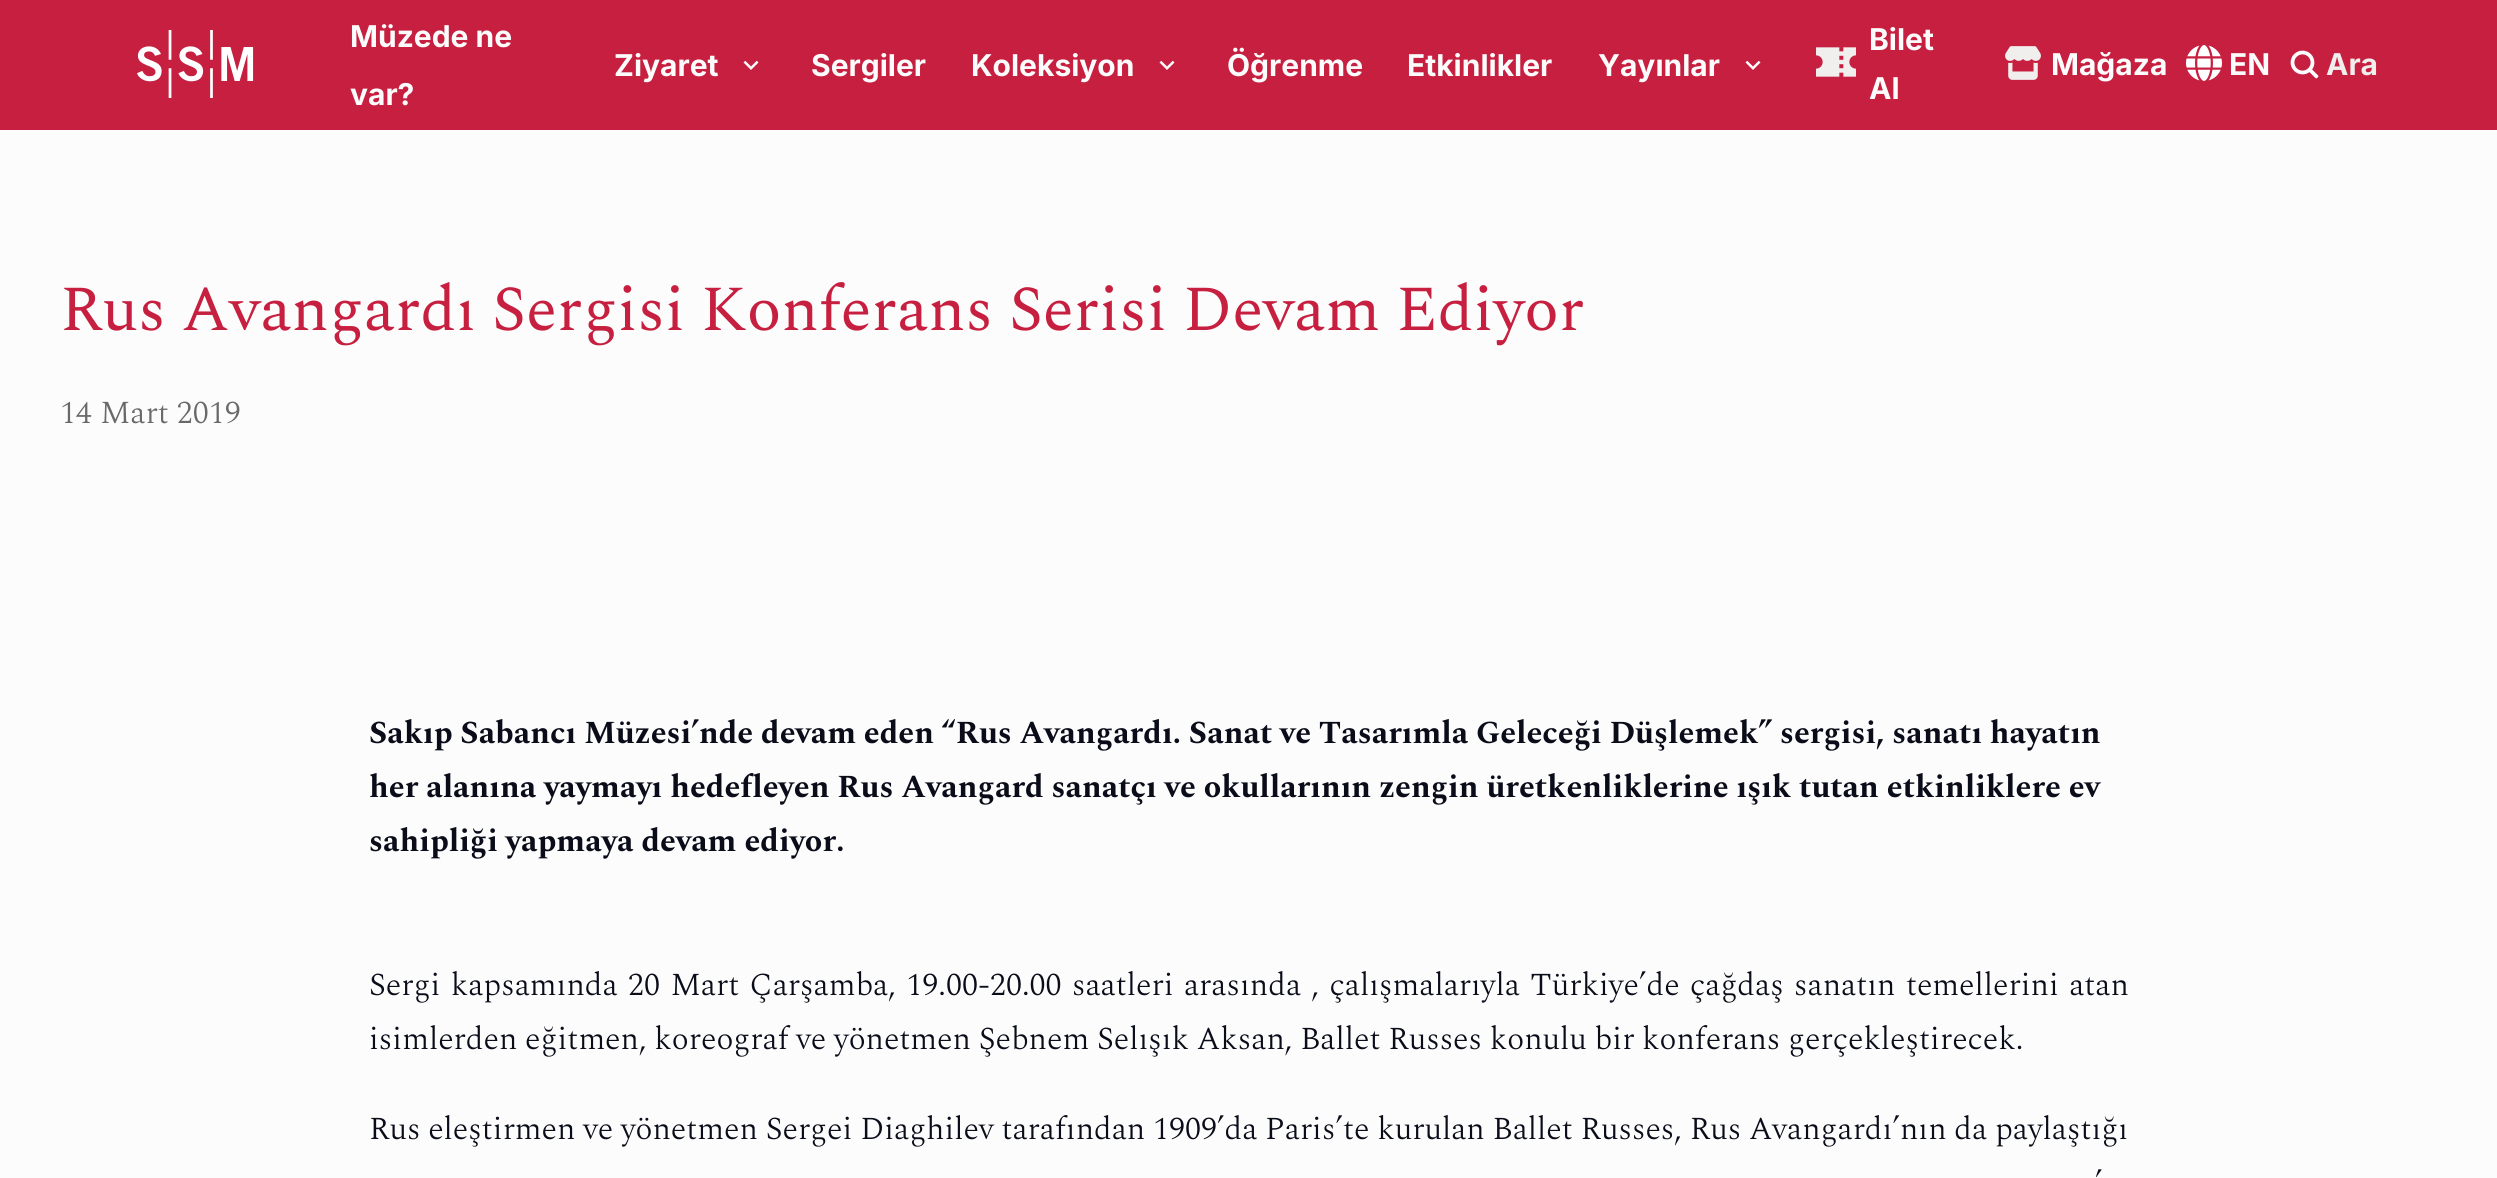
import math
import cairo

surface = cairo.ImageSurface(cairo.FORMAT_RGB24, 2497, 1178)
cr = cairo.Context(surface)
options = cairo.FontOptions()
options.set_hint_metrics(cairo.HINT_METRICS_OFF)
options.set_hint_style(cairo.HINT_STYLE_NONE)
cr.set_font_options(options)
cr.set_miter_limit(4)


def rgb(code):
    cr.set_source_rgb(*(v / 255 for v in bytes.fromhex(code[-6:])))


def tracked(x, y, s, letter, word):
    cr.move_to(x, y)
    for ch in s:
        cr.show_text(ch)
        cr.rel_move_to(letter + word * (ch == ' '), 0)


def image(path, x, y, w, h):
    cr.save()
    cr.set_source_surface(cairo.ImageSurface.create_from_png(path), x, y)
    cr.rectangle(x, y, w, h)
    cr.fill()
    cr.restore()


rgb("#fcfcfc")
cr.paint()
rgb("#c71f3f")
cr.rectangle(0, 0, 2497, 130)
cr.fill()
image("img/1.png", 137, 30, 117, 68)
image("img/2.png", 743, 60, 16, 10)
image("img/2.png", 1159, 60, 16, 10)
image("img/2.png", 1745, 60, 16, 10)
image("img/3.png", 1816, 47, 40, 30)
image("img/4.png", 2005, 46, 36, 34)
image("img/5.png", 2186, 45, 36, 36)
image("img/6.png", 2290, 50, 29, 29)
cr.select_font_face("Inter", cairo.FONT_SLANT_NORMAL, cairo.FONT_WEIGHT_BOLD)
cr.set_font_size(30)
rgb("#fcfcfc")
for x, y, s in [
    (350, 47, "Müzede ne"),
    (350, 105, "var?"),
    (614, 76, "Ziyaret"),
    (811, 76, "Sergiler"),
    (971, 76, "Koleksiyon"),
    (1227, 76, "Öğrenme"),
    (1407, 76, "Etkinlikler"),
    (1598, 76, "Yayınlar"),
    (1869, 50, "Bilet"),
    (1869, 99, "Al"),
    (2051, 75, "Mağaza"),
    (2229, 75, "EN"),
]:
    cr.move_to(x, y)
    cr.show_text(s)
rgb("#f0efee")
cr.move_to(2326, 75)
cr.show_text("Ara")
cr.select_font_face("Spectral")
cr.set_font_size(64)
rgb("#c71f3f")
tracked(60, 330, "Rus Avangardı Sergisi Konferans Serisi Devam Ediyor", 0, -0.25)
cr.select_font_face("Spectral Light")
cr.set_font_size(32)
rgb("#696969")
cr.move_to(60, 423)
cr.show_text("14 Mart 2019")
cr.select_font_face("Spectral", cairo.FONT_SLANT_NORMAL, cairo.FONT_WEIGHT_BOLD)
rgb("#0a0d19")
tracked(369, 743, "Sakıp Sabancı Müzesi’nde devam eden “Rus Avangardı. Sanat ve Tasarımla Geleceği Düşlemek” sergisi, sanatı hayatın", 0, -0.25)
tracked(369, 797, "her alanına yaymayı hedefleyen Rus Avangard sanatçı ve okullarının zengin üretkenliklerine ışık tutan etkinliklere ev", 0, -0.1)
cr.move_to(369, 851)
cr.show_text("sahipliği yapmaya devam ediyor.")
cr.select_font_face("Spectral Light")
tracked(369, 995, "Sergi kapsamında 20 Mart Çarşamba, 19.00-20.00 saatleri arasında , çalışmalarıyla Türkiye’de çağdaş sanatın temellerini atan", 0, 2.4)
tracked(369, 1049, "isimlerden eğitmen, koreograf ve yönetmen Şebnem Selışık Aksan, Ballet Russes konulu bir konferans gerçekleştirecek.", 0, -0.25)
tracked(369, 1139, "Rus eleştirmen ve yönetmen Sergei Diaghilev tarafından 1909’da Paris’te kurulan Ballet Russes, Rus Avangardı’nın da paylaştığı", 0, -0.25)
tracked(2095, 1193, "’", 0, 6)
surface.write_to_png("page.png")
